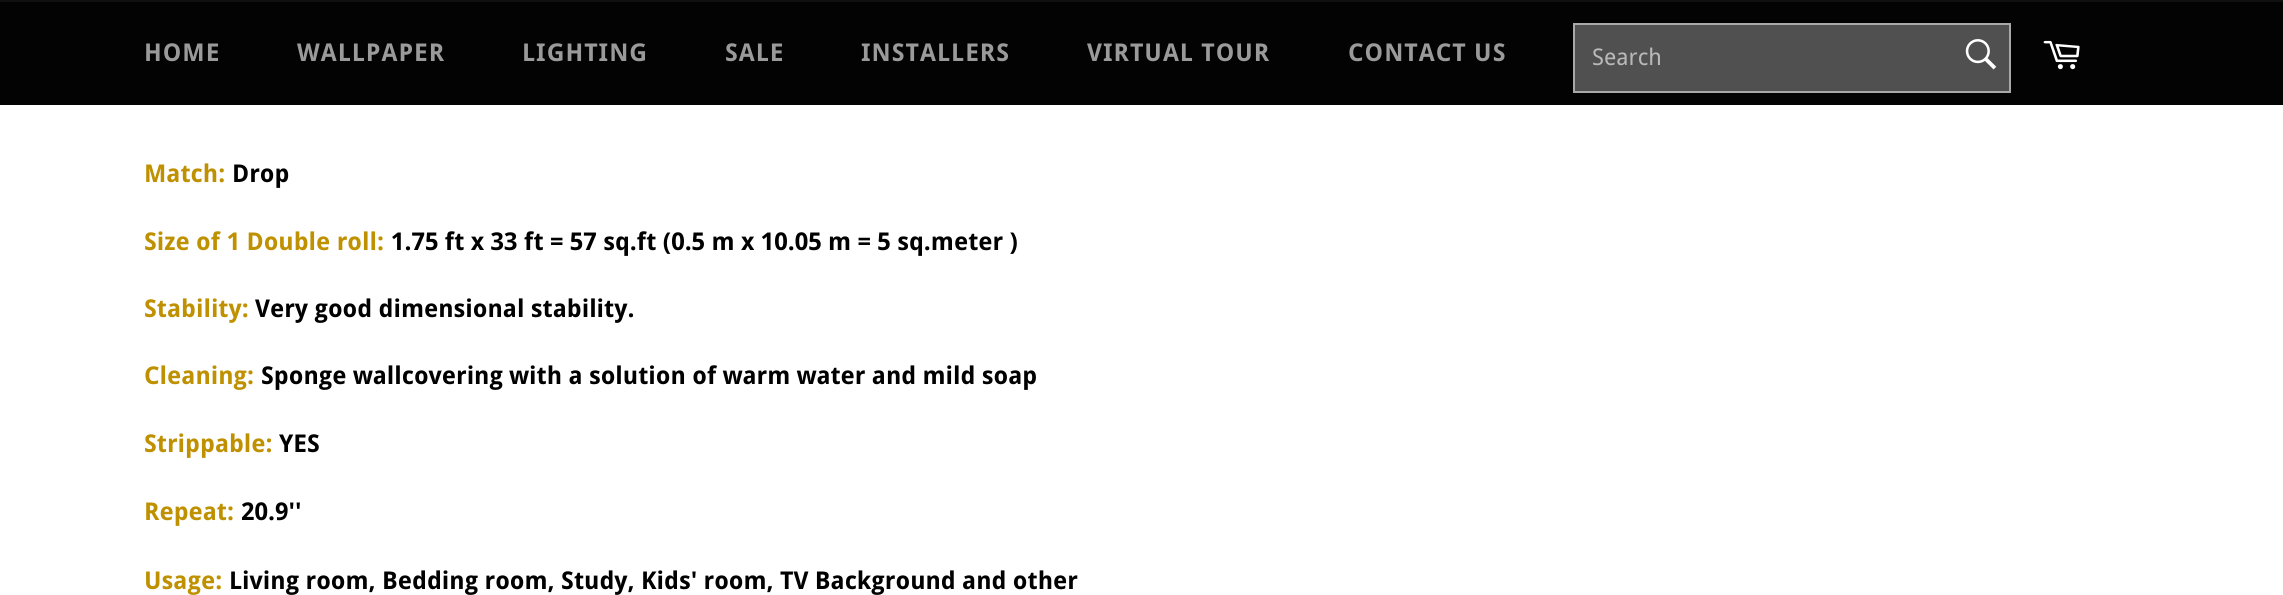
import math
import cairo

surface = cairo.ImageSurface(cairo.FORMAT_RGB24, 2283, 595)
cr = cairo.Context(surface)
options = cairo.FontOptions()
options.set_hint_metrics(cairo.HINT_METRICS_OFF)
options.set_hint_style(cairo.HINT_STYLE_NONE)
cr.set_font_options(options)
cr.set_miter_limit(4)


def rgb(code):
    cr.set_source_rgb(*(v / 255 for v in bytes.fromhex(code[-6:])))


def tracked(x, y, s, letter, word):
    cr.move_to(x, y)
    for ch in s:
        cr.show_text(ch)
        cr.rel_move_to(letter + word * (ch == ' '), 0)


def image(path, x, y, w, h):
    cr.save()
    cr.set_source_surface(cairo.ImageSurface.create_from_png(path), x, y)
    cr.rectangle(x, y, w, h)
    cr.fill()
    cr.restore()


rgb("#ffffff")
cr.paint()
rgb("#030303")
cr.rectangle(0, 2, 2283, 103)
cr.fill()
rgb("#101010")
cr.rectangle(0, 0, 2283, 2)
cr.fill()
rgb("#505050")
cr.rectangle(1574, 24, 436, 68)
cr.fill_preserve()
rgb("#a8a8a8")
cr.stroke()
image("img/1.png", 1965, 39, 32, 31)
image("img/2.png", 2043, 40, 37, 30)
cr.select_font_face("Droid Sans", cairo.FONT_SLANT_NORMAL, cairo.FONT_WEIGHT_BOLD)
cr.set_font_size(24.5)
rgb("#9a9a9a")
for x, y, s in [
    (144, 61, "HOME"),
    (297, 61, "WALLPAPER"),
    (522, 61, "LIGHTING"),
    (725, 61, "SALE"),
    (861, 61, "INSTALLERS"),
    (1087, 61, "VIRTUAL TOUR"),
    (1348, 61, "CONTACT US"),
]:
    tracked(x, y, s, 1, 0)
cr.select_font_face("Droid Sans")
cr.set_font_size(23)
rgb("#b9b9b9")
cr.move_to(1592, 65)
cr.show_text("Search")
cr.select_font_face("Droid Sans", cairo.FONT_SLANT_NORMAL, cairo.FONT_WEIGHT_BOLD)
cr.set_font_size(24.5)
rgb("#bf9000")
cr.move_to(144, 182)
cr.show_text("Match:")
rgb("#000000")
cr.move_to(232, 182)
cr.show_text("Drop")
rgb("#bf9000")
cr.move_to(144, 250)
cr.show_text("Size of 1 Double roll:")
rgb("#000000")
cr.move_to(391, 250)
cr.show_text("1.75 ft x 33 ft = 57 sq.ft (0.5 m x 10.05 m = 5 sq.meter )")
rgb("#bf9000")
cr.move_to(144, 317)
cr.show_text("Stability:")
rgb("#000000")
cr.move_to(255, 317)
cr.show_text("Very good dimensional stability.")
rgb("#bf9000")
cr.move_to(144, 384)
cr.show_text("Cleaning:")
rgb("#000000")
cr.move_to(261, 384)
cr.show_text("Sponge wallcovering with a solution of warm water and mild soap")
rgb("#bf9000")
cr.move_to(144, 452)
cr.show_text("Strippable:")
rgb("#000000")
cr.move_to(279, 452)
cr.show_text("YES")
rgb("#bf9000")
cr.move_to(144, 520)
cr.show_text("Repeat:")
rgb("#000000")
cr.move_to(241, 520)
cr.show_text("20.9''")
rgb("#bf9000")
cr.move_to(144, 589)
cr.show_text("Usage:")
rgb("#000000")
cr.move_to(229, 589)
cr.show_text("Living room, Bedding room, Study, Kids' room, TV Background and other")
surface.write_to_png("page.png")
